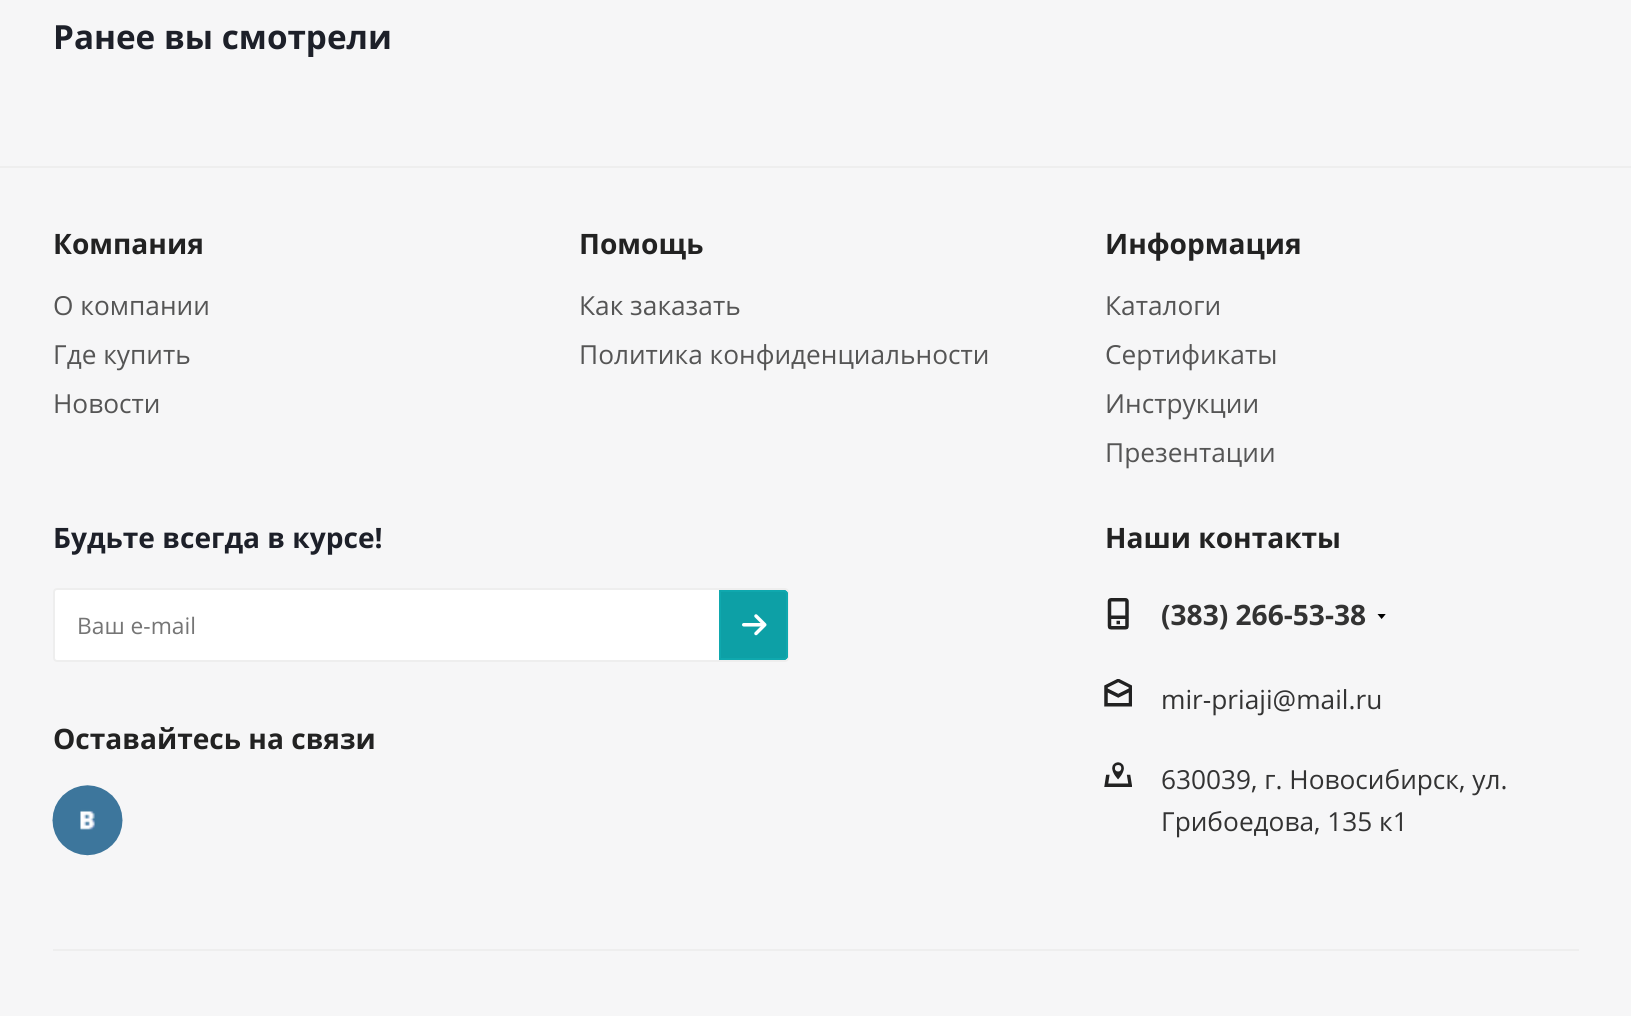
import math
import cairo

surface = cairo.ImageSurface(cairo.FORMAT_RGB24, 1631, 1016)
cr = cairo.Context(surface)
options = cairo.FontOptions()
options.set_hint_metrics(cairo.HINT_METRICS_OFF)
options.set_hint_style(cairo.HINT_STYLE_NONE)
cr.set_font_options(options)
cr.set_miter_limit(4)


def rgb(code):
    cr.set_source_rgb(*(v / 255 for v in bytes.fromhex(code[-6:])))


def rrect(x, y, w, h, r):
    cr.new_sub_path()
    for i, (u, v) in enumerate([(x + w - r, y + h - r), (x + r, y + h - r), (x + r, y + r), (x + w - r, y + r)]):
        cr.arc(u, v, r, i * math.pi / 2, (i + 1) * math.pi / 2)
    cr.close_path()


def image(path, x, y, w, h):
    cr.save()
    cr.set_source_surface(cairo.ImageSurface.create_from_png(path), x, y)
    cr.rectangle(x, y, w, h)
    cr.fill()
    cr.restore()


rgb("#f6f6f7")
cr.paint()
rgb("#eeeeee")
cr.rectangle(0, 166, 1631, 2)
cr.fill()
rgb("#ffffff")
rrect(54, 589, 734, 72, 3)
cr.fill_preserve()
rgb("#eeeeee")
cr.stroke()
rgb("#0da0a6")
cr.new_path()
cr.move_to(719, 590)
cr.line_to(784, 590)
cr.curve_to(786, 590, 788, 592, 788, 594)
cr.line_to(788, 656)
cr.curve_to(788, 658, 786, 660, 784, 660)
cr.line_to(719, 660)
cr.close_path()
cr.fill()
image("img/1.png", 742, 614, 25, 22)
cr.new_path()
cr.move_to(720, 591)
cr.line_to(784, 591)
cr.curve_to(785.5, 591, 787, 592.5, 787, 594)
cr.line_to(787, 656)
cr.curve_to(787, 657.5, 785.5, 659, 784, 659)
cr.line_to(720, 659)
cr.close_path()
rgb("#0fa8ae")
cr.stroke()
image("img/2.png", 52, 785, 71, 71)
image("img/3.png", 1107, 598, 22, 32)
image("img/4.png", 1377, 614, 9, 5)
image("img/5.png", 1104, 679, 28, 28)
image("img/6.png", 1104, 762, 28, 25)
rgb("#eeeeee")
cr.rectangle(53, 949, 1526, 2)
cr.fill()
cr.select_font_face("Open Sans", cairo.FONT_SLANT_NORMAL, cairo.FONT_WEIGHT_BOLD)
cr.set_font_size(33.25)
rgb("#1d2029")
cr.move_to(53, 49)
cr.show_text("Ранее вы смотрели")
cr.set_font_size(28.1)
rgb("#222222")
cr.move_to(53, 254)
cr.show_text("Компания")
cr.select_font_face("Open Sans")
cr.set_font_size(26.25)
rgb("#555555")
for x, y, s in [
    (53, 315, "О компании"),
    (53, 364, "Где купить"),
    (53, 413, "Новости"),
]:
    cr.move_to(x, y)
    cr.show_text(s)
cr.select_font_face("Open Sans", cairo.FONT_SLANT_NORMAL, cairo.FONT_WEIGHT_BOLD)
cr.set_font_size(28.1)
rgb("#222222")
cr.move_to(579, 254)
cr.show_text("Помощь")
cr.select_font_face("Open Sans")
cr.set_font_size(26.25)
rgb("#555555")
cr.move_to(579, 315)
cr.show_text("Как заказать")
cr.move_to(579, 364)
cr.show_text("Политика конфиденциальности")
cr.select_font_face("Open Sans", cairo.FONT_SLANT_NORMAL, cairo.FONT_WEIGHT_BOLD)
cr.set_font_size(28.1)
rgb("#222222")
cr.move_to(1105, 254)
cr.show_text("Информация")
cr.select_font_face("Open Sans")
cr.set_font_size(26.25)
rgb("#555555")
for x, y, s in [
    (1105, 315, "Каталоги"),
    (1105, 364, "Сертификаты"),
    (1105, 413, "Инструкции"),
    (1105, 462, "Презентации"),
]:
    cr.move_to(x, y)
    cr.show_text(s)
cr.select_font_face("Open Sans", cairo.FONT_SLANT_NORMAL, cairo.FONT_WEIGHT_BOLD)
cr.set_font_size(28.1)
rgb("#1d2029")
cr.move_to(53, 548)
cr.show_text("Будьте всегда в курсе!")
cr.select_font_face("Open Sans")
cr.set_font_size(22.75)
rgb("#757575")
cr.move_to(77, 634)
cr.show_text("Ваш e-mail")
cr.select_font_face("Open Sans", cairo.FONT_SLANT_NORMAL, cairo.FONT_WEIGHT_BOLD)
cr.set_font_size(28.1)
rgb("#222222")
cr.move_to(53, 749)
cr.show_text("Оставайтесь на связи")
cr.move_to(1105, 548)
cr.show_text("Наши контакты")
rgb("#333333")
cr.move_to(1161, 625)
cr.show_text("(383) 266-53-38")
cr.select_font_face("Open Sans")
cr.set_font_size(26.25)
for x, y, s in [
    (1161, 709, "mir-priaji@mail.ru"),
    (1161, 789, "630039, г. Новосибирск, ул."),
    (1161, 831, "Грибоедова, 135 к1"),
]:
    cr.move_to(x, y)
    cr.show_text(s)
surface.write_to_png("page.png")
